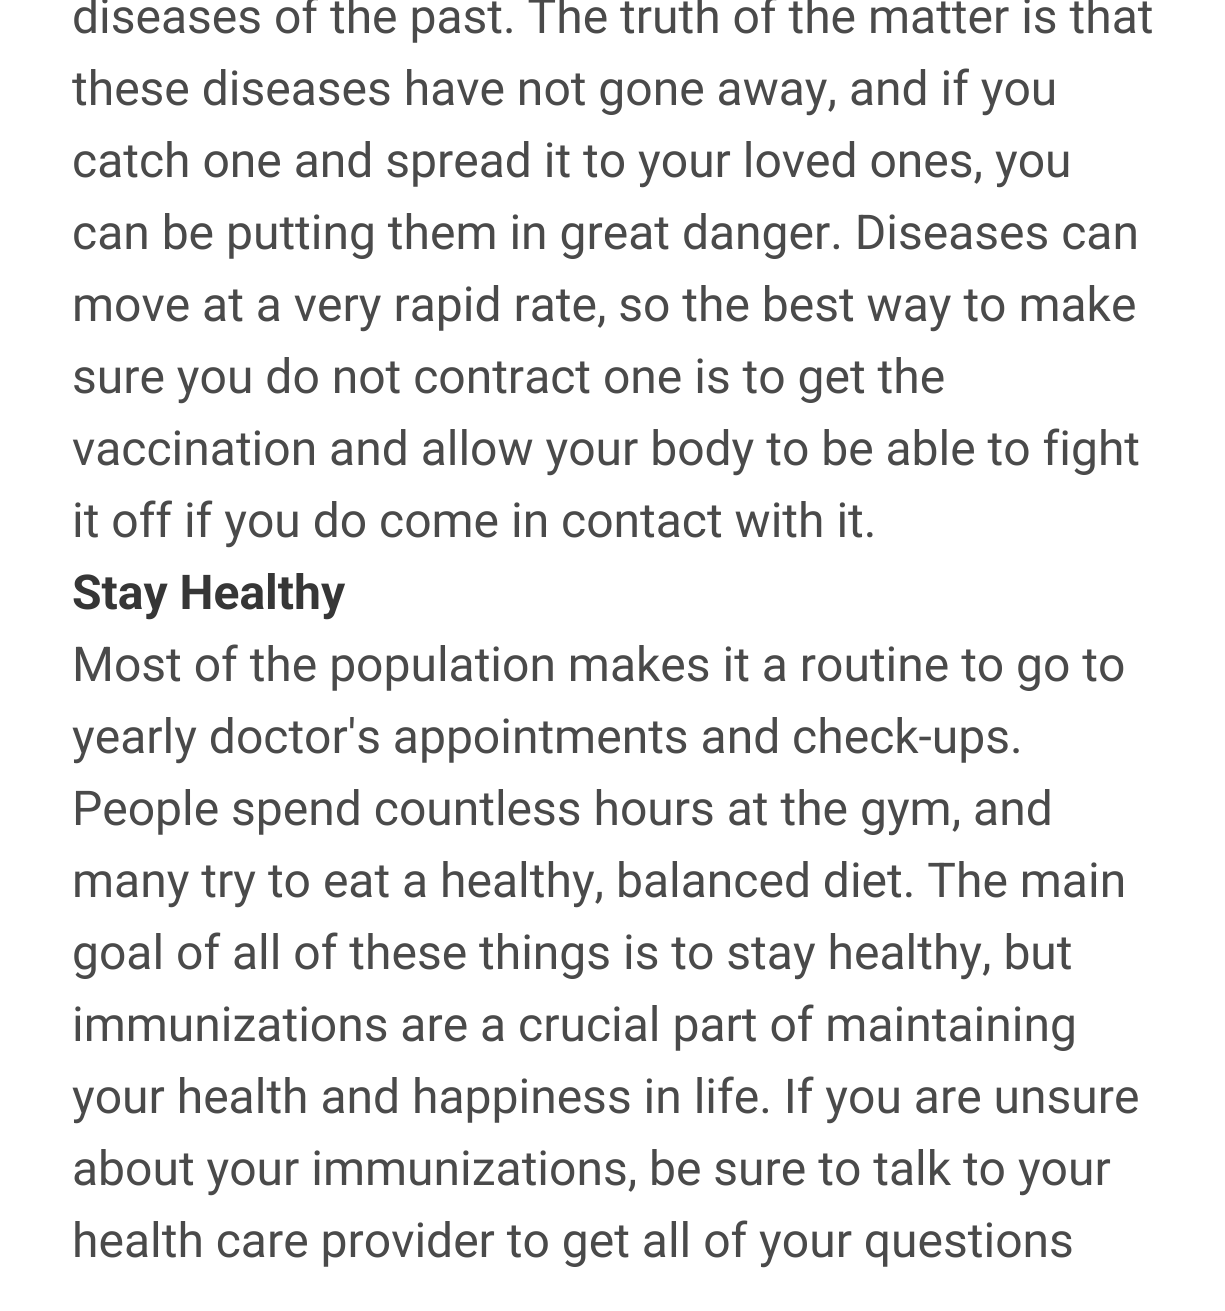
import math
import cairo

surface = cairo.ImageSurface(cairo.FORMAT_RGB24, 1225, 1311)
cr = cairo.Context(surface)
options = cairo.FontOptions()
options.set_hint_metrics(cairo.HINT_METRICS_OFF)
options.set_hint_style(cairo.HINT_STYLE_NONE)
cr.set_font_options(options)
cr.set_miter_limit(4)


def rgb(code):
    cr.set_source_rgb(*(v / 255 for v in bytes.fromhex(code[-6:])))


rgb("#ffffff")
cr.paint()
cr.select_font_face("Roboto")
cr.set_font_size(48)
rgb("#4a4a4a")
for x, y, s in [
    (72, 33, "diseases of the past. The truth of the matter is that"),
    (72, 105, "these diseases have not gone away, and if you"),
    (72, 177, "catch one and spread it to your loved ones, you"),
    (72, 249, "can be putting them in great danger. Diseases can"),
    (72, 321, "move at a very rapid rate, so the best way to make"),
    (72, 393, "sure you do not contract one is to get the"),
    (72, 465, "vaccination and allow your body to be able to fight"),
    (72, 537, "it off if you do come in contact with it."),
]:
    cr.move_to(x, y)
    cr.show_text(s)
cr.select_font_face("Roboto", cairo.FONT_SLANT_NORMAL, cairo.FONT_WEIGHT_BOLD)
rgb("#363636")
cr.move_to(72, 609)
cr.show_text("Stay Healthy")
cr.select_font_face("Roboto")
rgb("#4a4a4a")
for x, y, s in [
    (72, 681, "Most of the population makes it a routine to go to"),
    (72, 753, "yearly doctor's appointments and check-ups."),
    (72, 825, "People spend countless hours at the gym, and"),
    (72, 897, "many try to eat a healthy, balanced diet. The main"),
    (72, 969, "goal of all of these things is to stay healthy, but"),
    (72, 1041, "immunizations are a crucial part of maintaining"),
    (72, 1113, "your health and happiness in life. If you are unsure"),
    (72, 1185, "about your immunizations, be sure to talk to your"),
    (72, 1257, "health care provider to get all of your questions"),
]:
    cr.move_to(x, y)
    cr.show_text(s)
surface.write_to_png("page.png")
